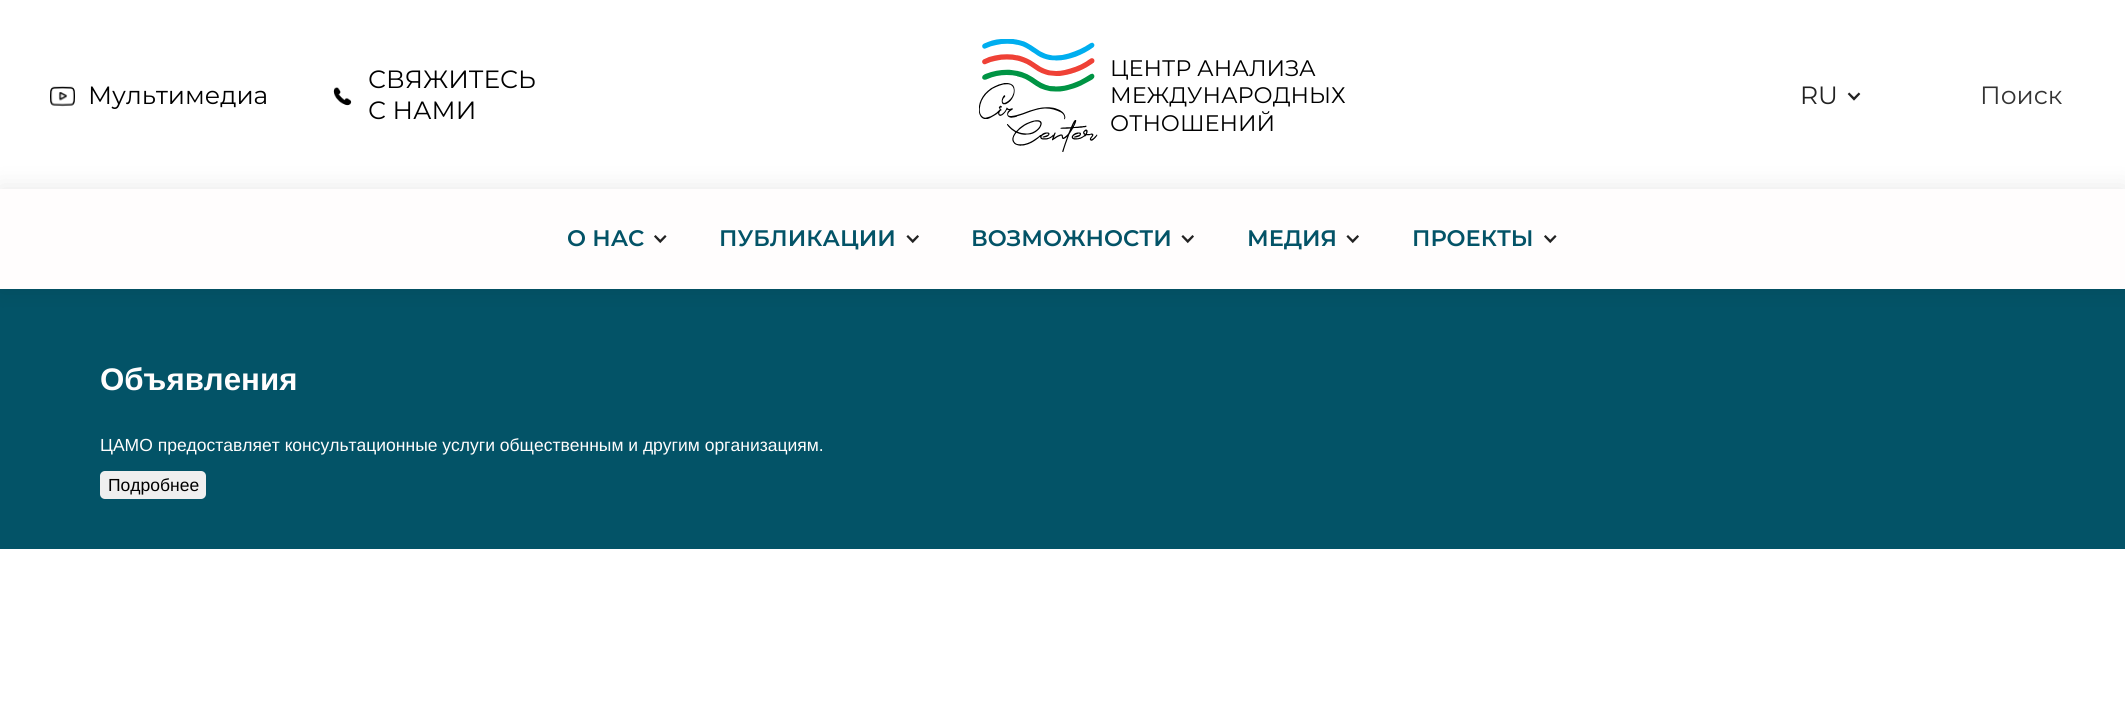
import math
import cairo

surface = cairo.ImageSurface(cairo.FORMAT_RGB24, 2125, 705)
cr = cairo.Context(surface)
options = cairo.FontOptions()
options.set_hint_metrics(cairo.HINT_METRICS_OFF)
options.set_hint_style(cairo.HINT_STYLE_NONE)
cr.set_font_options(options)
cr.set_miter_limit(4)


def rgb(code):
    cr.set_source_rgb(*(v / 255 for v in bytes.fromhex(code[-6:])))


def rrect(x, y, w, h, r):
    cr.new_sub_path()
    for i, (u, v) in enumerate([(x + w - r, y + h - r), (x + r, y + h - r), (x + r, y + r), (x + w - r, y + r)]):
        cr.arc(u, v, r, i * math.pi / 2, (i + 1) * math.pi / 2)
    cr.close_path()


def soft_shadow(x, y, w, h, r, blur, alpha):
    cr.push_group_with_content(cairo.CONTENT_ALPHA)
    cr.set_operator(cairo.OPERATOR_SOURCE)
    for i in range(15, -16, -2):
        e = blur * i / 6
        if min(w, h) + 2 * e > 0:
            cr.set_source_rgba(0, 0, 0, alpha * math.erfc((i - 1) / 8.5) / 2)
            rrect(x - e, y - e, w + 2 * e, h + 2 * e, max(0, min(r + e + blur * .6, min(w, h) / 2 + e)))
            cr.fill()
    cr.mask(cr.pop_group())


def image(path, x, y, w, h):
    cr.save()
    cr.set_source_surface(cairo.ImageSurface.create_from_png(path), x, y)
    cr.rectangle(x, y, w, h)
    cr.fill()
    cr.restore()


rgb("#ffffff")
cr.paint()
image("img/1.png", 50, 86, 25, 21)
image("img/2.png", 333, 87, 19, 19)
image("img/3.png", 979, 39, 119, 113)
image("img/4.png", 1847, 92, 14, 9)
rgb("#035367")
cr.rectangle(0, 289, 2125, 260)
cr.fill()
rgb("#000000")
soft_shadow(0, 189, 2125, 100, 0, 12.5, 0.1)
rgb("#fffdfd")
cr.rectangle(0, 189, 2125, 100)
cr.fill()
image("img/5.png", 654, 235, 13, 9)
image("img/6.png", 906, 235, 13, 9)
image("img/6.png", 1181, 235, 13, 9)
image("img/6.png", 1346, 235, 13, 9)
image("img/5.png", 1544, 235, 13, 9)
rgb("#efefef")
rrect(100, 471, 106, 28, 5)
cr.fill()
cr.select_font_face("Montserrat")
cr.set_font_size(25)
rgb("#000000")
for x, y, s in [
    (88, 104, "Мультимедиа"),
    (368, 88, "СВЯЖИТЕСЬ"),
    (368, 119, "С НАМИ"),
]:
    cr.move_to(x, y)
    cr.show_text(s)
cr.set_font_size(22.5)
for x, y, s in [
    (1110, 76, "ЦЕНТР АНАЛИЗА"),
    (1110, 103, "МЕЖДУНАРОДНЫХ"),
    (1110, 131, "ОТНОШЕНИЙ"),
]:
    cr.move_to(x, y)
    cr.show_text(s)
cr.set_font_size(25)
rgb("#222222")
cr.move_to(1800, 104)
cr.show_text("RU")
rgb("#333333")
cr.move_to(1980, 104)
cr.show_text("Поиск")
cr.select_font_face("Montserrat SemiBold")
cr.set_font_size(22.5)
rgb("#035367")
for x, y, s in [
    (567, 246, "О НАС"),
    (719, 246, "ПУБЛИКАЦИИ"),
    (971, 246, "ВОЗМОЖНОСТИ"),
    (1247, 246, "МЕДИЯ"),
    (1412, 246, "ПРОЕКТЫ"),
]:
    cr.move_to(x, y)
    cr.show_text(s)
cr.select_font_face("Liberation Sans", cairo.FONT_SLANT_NORMAL, cairo.FONT_WEIGHT_BOLD)
cr.set_font_size(31.25)
rgb("#fffdfd")
cr.move_to(100, 390)
cr.show_text("Объявления")
cr.select_font_face("Liberation Sans")
cr.set_font_size(17.5)
cr.move_to(100, 451)
cr.show_text("ЦАМО предоставляет консультационные услуги общественным и другим организациям.")
rgb("#000000")
cr.move_to(108, 491)
cr.show_text("Подробнее")
surface.write_to_png("page.png")
